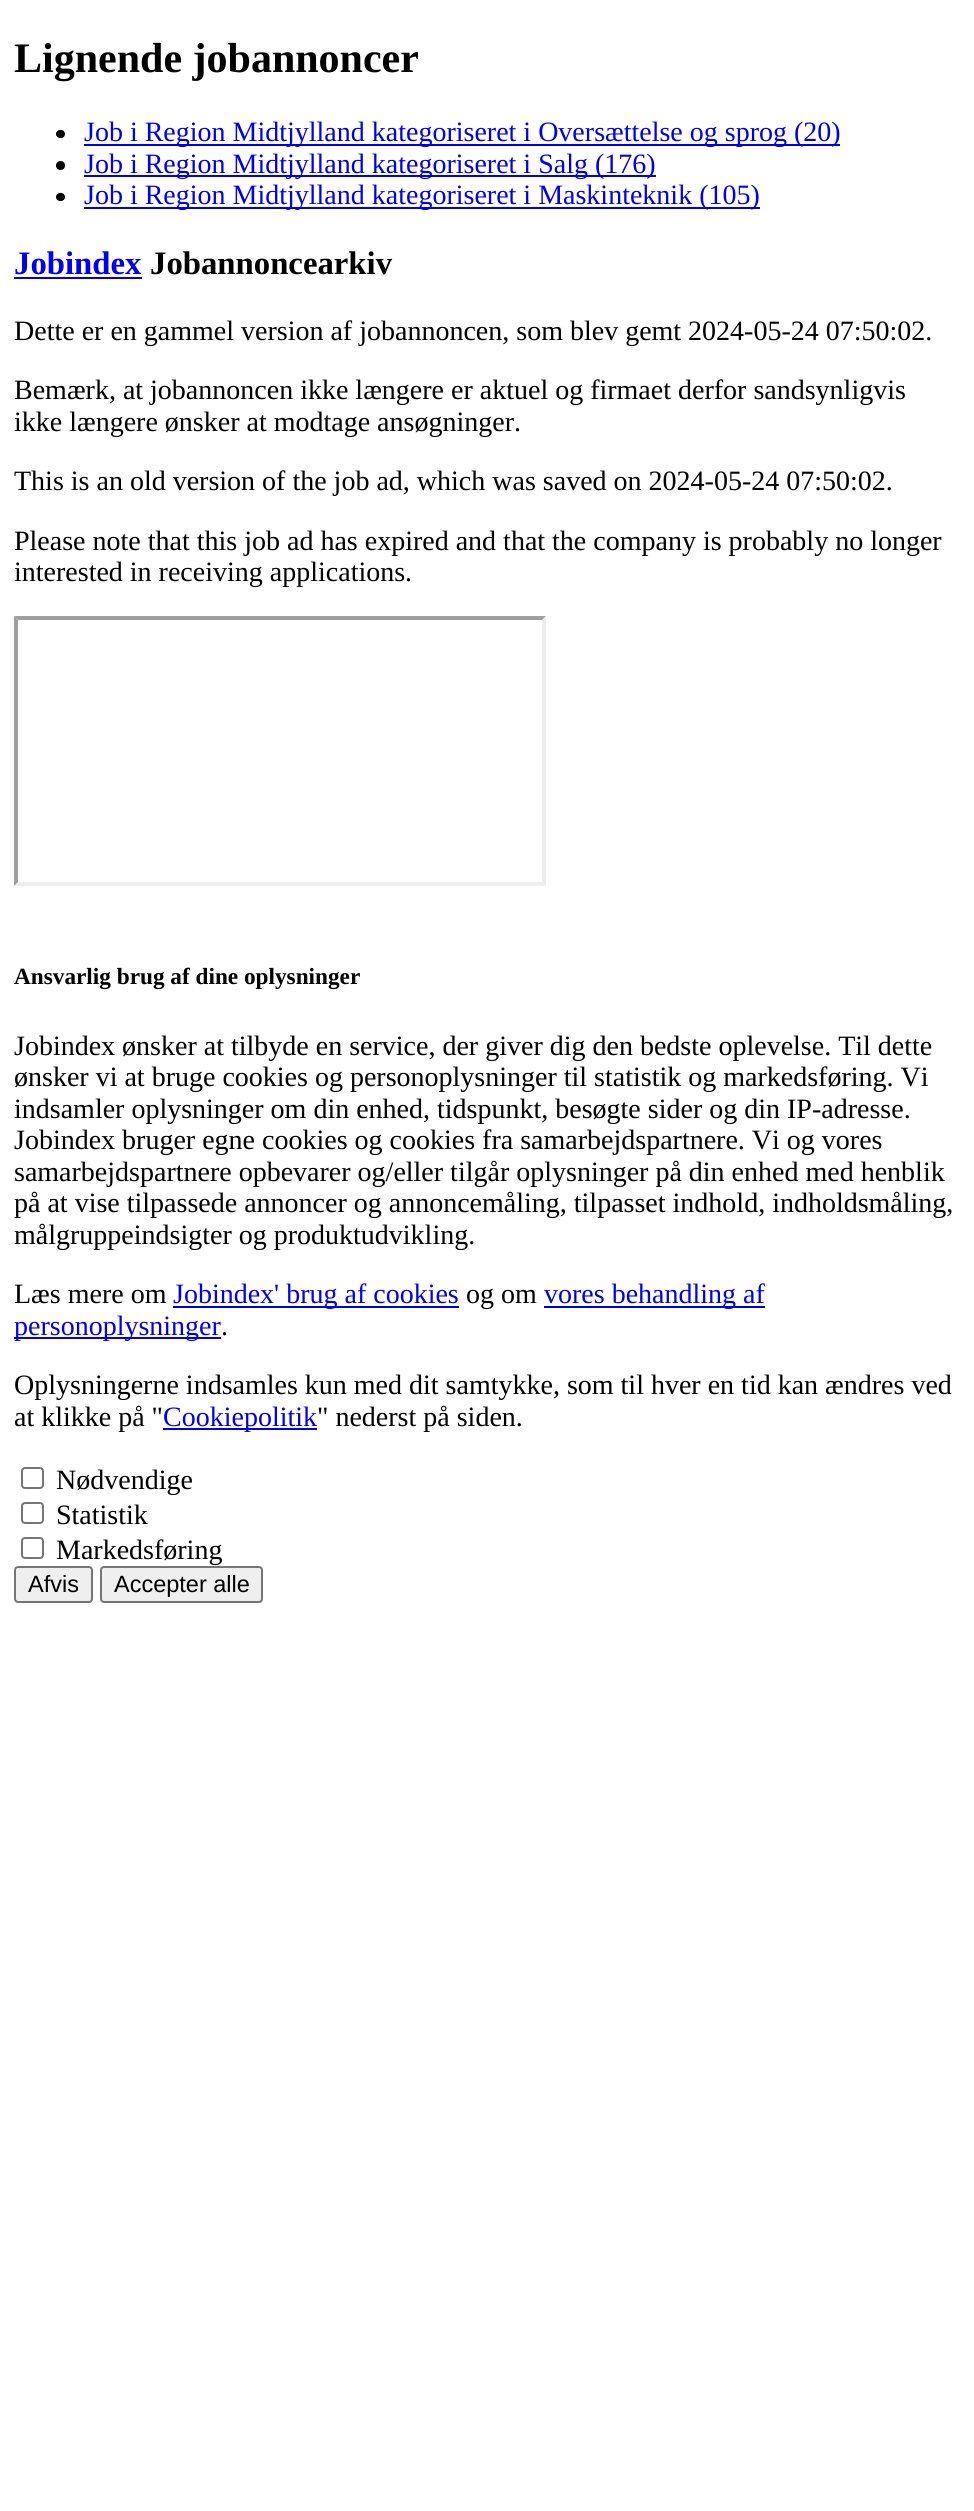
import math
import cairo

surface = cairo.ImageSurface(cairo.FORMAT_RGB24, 974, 2511)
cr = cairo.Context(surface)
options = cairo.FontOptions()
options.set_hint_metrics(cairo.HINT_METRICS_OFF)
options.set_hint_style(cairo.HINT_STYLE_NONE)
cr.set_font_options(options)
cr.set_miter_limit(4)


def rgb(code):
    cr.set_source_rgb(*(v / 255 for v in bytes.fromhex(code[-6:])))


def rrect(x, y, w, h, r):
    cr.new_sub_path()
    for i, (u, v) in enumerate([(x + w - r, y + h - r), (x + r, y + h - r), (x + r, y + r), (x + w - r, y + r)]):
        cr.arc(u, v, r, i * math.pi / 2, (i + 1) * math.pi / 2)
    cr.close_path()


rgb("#ffffff")
cr.paint()
rgb("#000000")
rrect(56, 130, 9, 8, 4)
cr.fill()
rgb("#0000ee")
cr.rectangle(84, 144, 756, 2)
cr.fill()
rgb("#000000")
cr.arc(60.5, 165.5, 4.5, 0, 2 * math.pi)
cr.fill()
rgb("#0000ee")
cr.rectangle(84, 175, 572, 2)
cr.fill()
rgb("#000000")
rrect(56, 193, 9, 8, 4)
cr.fill()
rgb("#0000ee")
cr.rectangle(84, 207, 676, 2)
cr.fill()
cr.rectangle(14, 277, 128, 2)
cr.fill()
rgb("#9f9f9f")
cr.new_path()
cr.move_to(14, 616)
cr.line_to(546, 616)
cr.line_to(542, 620)
cr.line_to(18, 620)
cr.close_path()
cr.fill()
rgb("#eeeeee")
cr.new_path()
cr.move_to(546, 616)
cr.line_to(546, 886)
cr.line_to(542, 882)
cr.line_to(542, 620)
cr.close_path()
cr.fill()
cr.new_path()
cr.move_to(546, 886)
cr.line_to(14, 886)
cr.line_to(18, 882)
cr.line_to(542, 882)
cr.close_path()
cr.fill()
rgb("#9f9f9f")
cr.new_path()
cr.move_to(14, 886)
cr.line_to(14, 616)
cr.line_to(18, 620)
cr.line_to(18, 882)
cr.close_path()
cr.fill()
for x, y, w, h, color in [
    (173, 1306, 286, 2, "#0000ee"),
    (544, 1306, 221, 2, "#0000ee"),
    (14, 1337, 207, 2, "#0000ee"),
    (163, 1428, 154, 2, "#0000ee"),
]:
    rgb(color)
    cr.rectangle(x, y, w, h)
    cr.fill()
rrect(22, 1468, 21, 20, 3)
rgb("#767676")
cr.stroke()
rrect(22, 1503, 21, 20, 3)
cr.stroke()
rrect(22, 1538, 21, 20, 3)
cr.stroke()
rgb("#efefef")
rrect(15, 1567, 77, 35, 3)
cr.fill_preserve()
rgb("#767676")
cr.stroke()
rgb("#efefef")
rrect(101, 1567, 161, 35, 3)
cr.fill_preserve()
rgb("#767676")
cr.stroke()
cr.select_font_face("Liberation Serif", cairo.FONT_SLANT_NORMAL, cairo.FONT_WEIGHT_BOLD)
cr.set_font_size(42)
rgb("#000000")
cr.move_to(14, 72)
cr.show_text("Lignende jobannoncer")
cr.select_font_face("Liberation Serif")
cr.set_font_size(28)
rgb("#0000ee")
for x, y, s in [
    (84, 141, "Job i Region Midtjylland kategoriseret i Oversættelse og sprog (20)"),
    (84, 173, "Job i Region Midtjylland kategoriseret i Salg (176)"),
    (84, 204, "Job i Region Midtjylland kategoriseret i Maskinteknik (105)"),
]:
    cr.move_to(x, y)
    cr.show_text(s)
cr.select_font_face("Liberation Serif", cairo.FONT_SLANT_NORMAL, cairo.FONT_WEIGHT_BOLD)
cr.set_font_size(32.75)
cr.move_to(14, 274)
cr.show_text("Jobindex")
rgb("#000000")
cr.move_to(150, 274)
cr.show_text("Jobannoncearkiv")
cr.select_font_face("Liberation Serif")
cr.set_font_size(28)
for x, y, s in [
    (14, 340, "Dette er en gammel version af jobannoncen, som blev gemt 2024-05-24 07:50:02."),
    (14, 399, "Bemærk, at jobannoncen ikke længere er aktuel og firmaet derfor sandsynligvis"),
    (14, 431, "ikke længere ønsker at modtage ansøgninger."),
    (14, 490, "This is an old version of the job ad, which was saved on 2024-05-24 07:50:02."),
    (14, 550, "Please note that this job ad has expired and that the company is probably no longer"),
    (14, 581, "interested in receiving applications."),
]:
    cr.move_to(x, y)
    cr.show_text(s)
cr.select_font_face("Liberation Serif", cairo.FONT_SLANT_NORMAL, cairo.FONT_WEIGHT_BOLD)
cr.set_font_size(23.25)
cr.move_to(14, 984)
cr.show_text("Ansvarlig brug af dine oplysninger")
cr.select_font_face("Liberation Serif")
cr.set_font_size(28)
for x, y, s in [
    (14, 1055, "Jobindex ønsker at tilbyde en service, der giver dig den bedste oplevelse. Til dette"),
    (14, 1086, "ønsker vi at bruge cookies og personoplysninger til statistik og markedsføring. Vi"),
    (14, 1118, "indsamler oplysninger om din enhed, tidspunkt, besøgte sider og din IP-adresse."),
    (14, 1149, "Jobindex bruger egne cookies og cookies fra samarbejdspartnere. Vi og vores"),
    (14, 1181, "samarbejdspartnere opbevarer og/eller tilgår oplysninger på din enhed med henblik"),
    (14, 1212, "på at vise tilpassede annoncer og annoncemåling, tilpasset indhold, indholdsmåling,"),
    (14, 1244, "målgruppeindsigter og produktudvikling."),
    (14, 1303, "Læs mere om"),
]:
    cr.move_to(x, y)
    cr.show_text(s)
rgb("#0000ee")
cr.move_to(173, 1303)
cr.show_text("Jobindex' brug af cookies")
rgb("#000000")
cr.move_to(466, 1303)
cr.show_text("og om")
rgb("#0000ee")
cr.move_to(544, 1303)
cr.show_text("vores behandling af")
cr.move_to(14, 1335)
cr.show_text("personoplysninger")
rgb("#000000")
for x, y, s in [
    (221, 1335, "."),
    (14, 1394, "Oplysningerne indsamles kun med dit samtykke, som til hver en tid kan ændres ved"),
    (14, 1426, "at klikke på \""),
]:
    cr.move_to(x, y)
    cr.show_text(s)
rgb("#0000ee")
cr.move_to(163, 1426)
cr.show_text("Cookiepolitik")
rgb("#000000")
for x, y, s in [
    (317, 1426, "\" nederst på siden."),
    (56, 1489, "Nødvendige"),
    (56, 1524, "Statistik"),
    (56, 1559, "Markedsføring"),
]:
    cr.move_to(x, y)
    cr.show_text(s)
cr.select_font_face("Liberation Sans")
cr.set_font_size(23.5)
cr.move_to(28, 1592)
cr.show_text("Afvis")
cr.move_to(114, 1592)
cr.show_text("Accepter alle")
surface.write_to_png("page.png")
